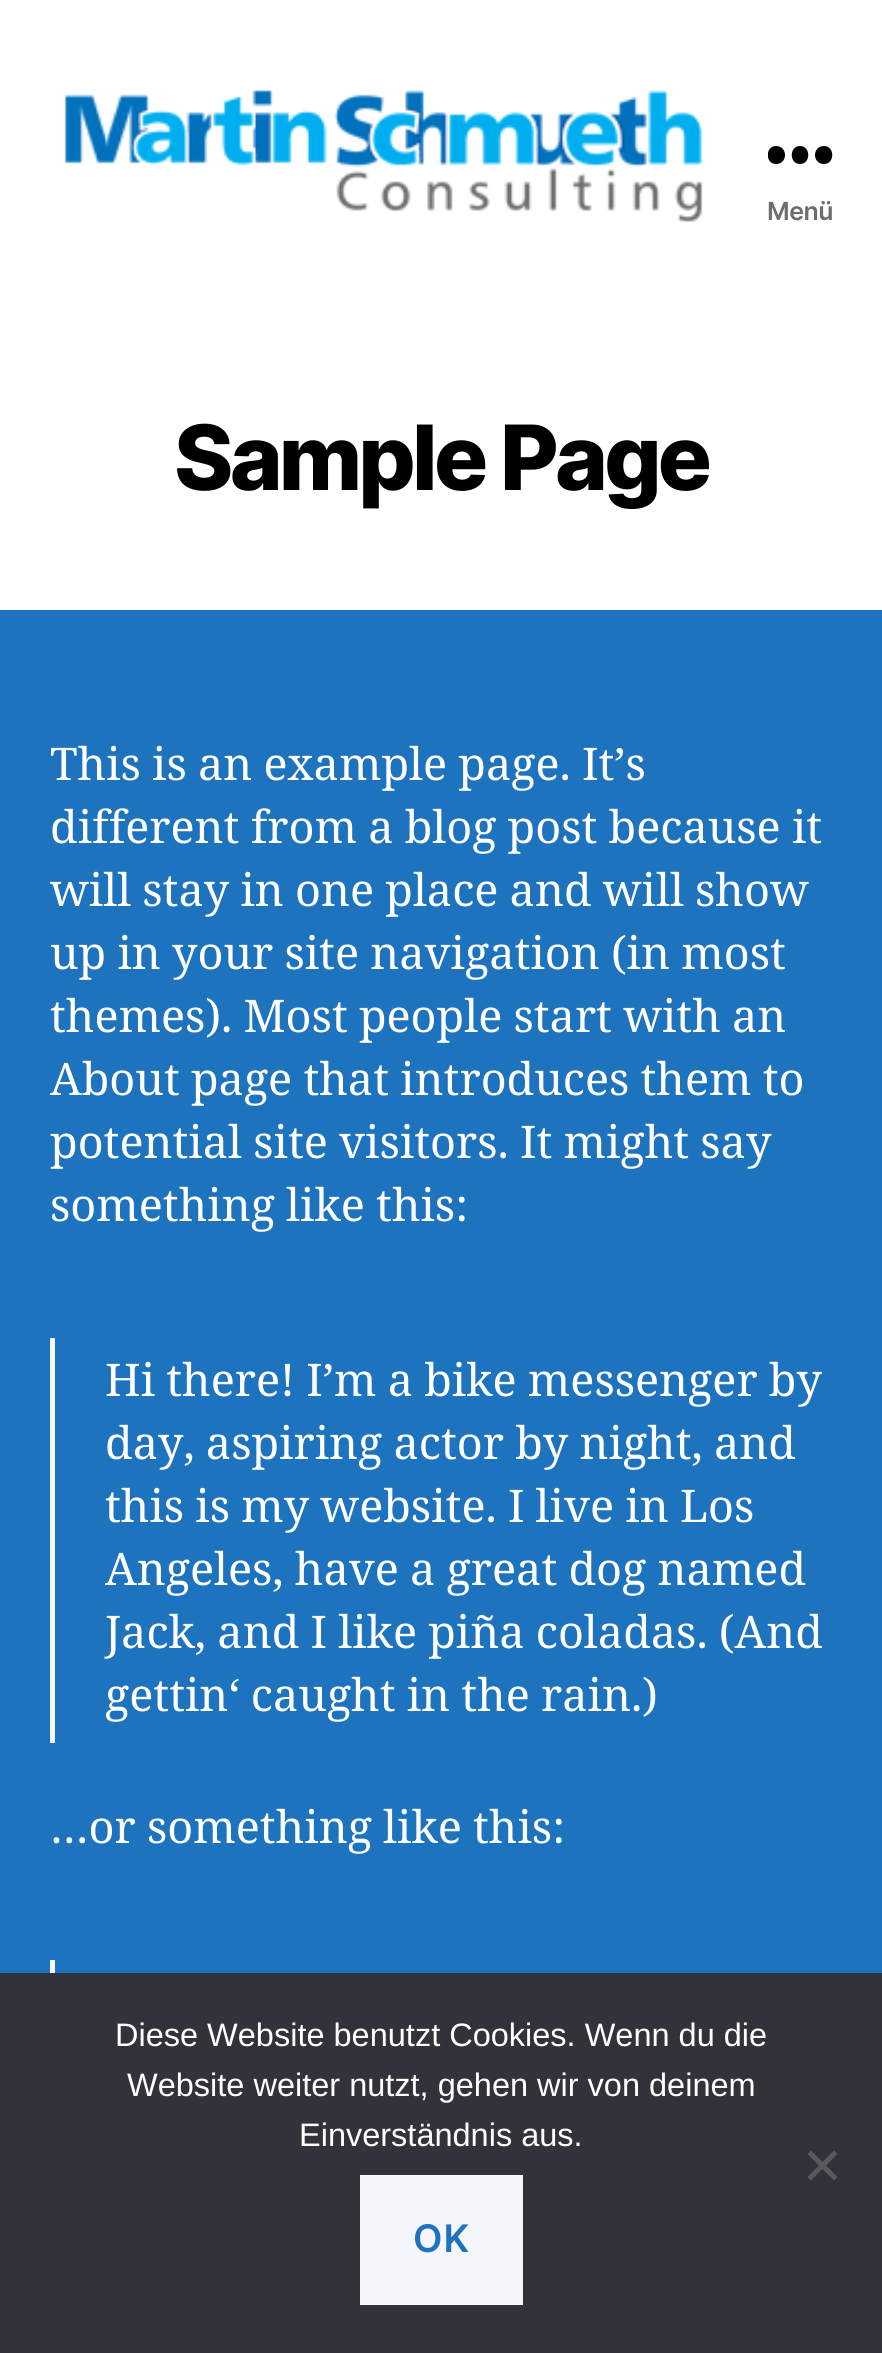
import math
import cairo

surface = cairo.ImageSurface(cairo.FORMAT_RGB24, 882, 2353)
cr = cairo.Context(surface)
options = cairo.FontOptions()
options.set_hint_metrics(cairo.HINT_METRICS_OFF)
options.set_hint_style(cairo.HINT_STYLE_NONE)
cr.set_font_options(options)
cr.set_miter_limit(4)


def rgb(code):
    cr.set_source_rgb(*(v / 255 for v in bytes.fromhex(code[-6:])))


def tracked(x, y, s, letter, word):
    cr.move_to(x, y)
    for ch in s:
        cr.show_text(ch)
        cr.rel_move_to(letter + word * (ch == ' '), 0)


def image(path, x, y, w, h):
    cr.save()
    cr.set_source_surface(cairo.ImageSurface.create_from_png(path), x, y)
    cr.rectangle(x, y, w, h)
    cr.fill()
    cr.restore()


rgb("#1e73be")
cr.paint()
rgb("#ffffff")
cr.rectangle(0, 0, 882, 610)
cr.fill()
image("img/1.png", 64, 90, 639, 132)
cr.save()
cr.rectangle(768, 145, 65, 20)
cr.clip()
rgb("#000000")
cr.set_fill_rule(cairo.FILL_RULE_EVEN_ODD)
cr.new_path()
cr.move_to(776, 164)
cr.curve_to(765, 164, 765, 146, 776, 146)
cr.curve_to(788, 146, 788, 164, 776, 164)
cr.close_path()
cr.move_to(800, 164)
cr.curve_to(789, 164, 789, 146, 800, 146)
cr.curve_to(811, 146, 811, 164, 800, 164)
cr.close_path()
cr.move_to(824, 164)
cr.curve_to(812, 164, 812, 146, 824, 146)
cr.curve_to(835, 146, 835, 164, 824, 164)
cr.close_path()
cr.fill()
cr.restore()
for x, y, w, h, color in [
    (50, 1338, 5, 405, "#f6f7fd"),
    (50, 1960, 5, 13, "#f6f7fd"),
    (0, 1973, 882, 380, "#32323a"),
]:
    rgb(color)
    cr.rectangle(x, y, w, h)
    cr.fill()
rgb("#59595d")
cr.new_path()
cr.move_to(834, 2150.5)
cr.line_to(837.5, 2154)
cr.line_to(811, 2180.5)
cr.line_to(807.5, 2177)
cr.close_path()
cr.fill()
cr.new_path()
cr.move_to(807.5, 2154)
cr.line_to(811, 2150.5)
cr.line_to(837.5, 2177)
cr.line_to(834, 2180.5)
cr.close_path()
cr.fill()
rgb("#f6f7fd")
cr.rectangle(360, 2175, 163, 130)
cr.fill()
cr.select_font_face("Inter SemiBold")
cr.set_font_size(25)
rgb("#6d6d6d")
tracked(767, 220, "Menü", -0.5, 0)
cr.select_font_face("Inter ExtraBold")
cr.set_font_size(90)
rgb("#000000")
tracked(174, 490, "Sample Page", -3.75, 0)
cr.select_font_face("Noto Serif")
cr.set_font_size(45)
rgb("#ffffff")
for x, y, s in [
    (50, 780, "This is an example page. It’s"),
    (50, 843, "different from a blog post because it"),
    (50, 906, "will stay in one place and will show"),
    (50, 969, "up in your site navigation (in most"),
    (50, 1032, "themes). Most people start with an"),
    (50, 1095, "About page that introduces them to"),
    (50, 1158, "potential site visitors. It might say"),
    (50, 1221, "something like this:"),
    (105, 1396, "Hi there! I’m a bike messenger by"),
    (105, 1459, "day, aspiring actor by night, and"),
    (105, 1522, "this is my website. I live in Los"),
    (105, 1585, "Angeles, have a great dog named"),
    (105, 1648, "Jack, and I like piña coladas. (And"),
    (105, 1711, "gettin‘ caught in the rain.)"),
    (50, 1843, "…or something like this:"),
]:
    tracked(x, y, s, 0, -0.5)
cr.select_font_face("Liberation Sans")
cr.set_font_size(32.5)
for x, y, s in [
    (115, 2046, "Diese Website benutzt Cookies. Wenn du die"),
    (127, 2096, "Website weiter nutzt, gehen wir von deinem"),
    (299, 2146, "Einverständnis aus."),
]:
    cr.move_to(x, y)
    cr.show_text(s)
cr.select_font_face("Inter SemiBold")
cr.set_font_size(38)
rgb("#1e73be")
tracked(413, 2252, "OK", 1, 0)
surface.write_to_png("page.png")
